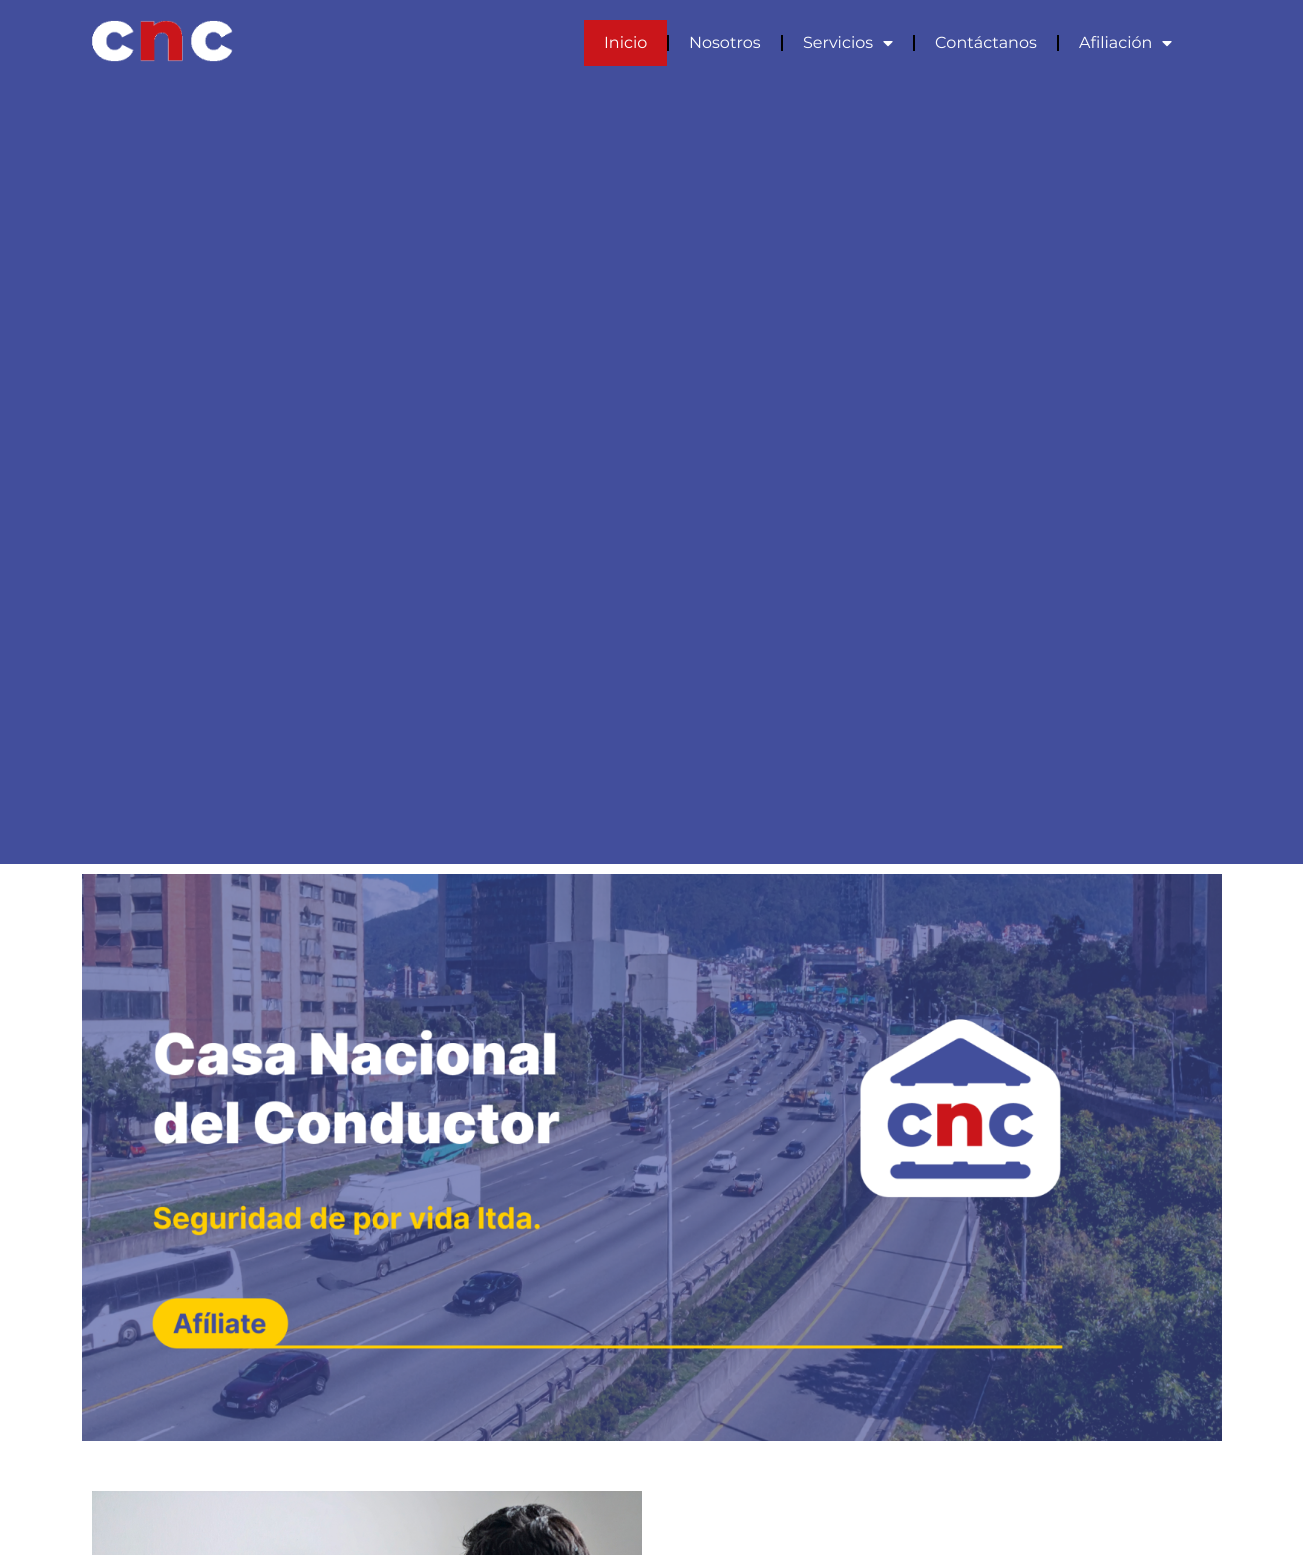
import math
import cairo

surface = cairo.ImageSurface(cairo.FORMAT_RGB24, 1303, 1555)
cr = cairo.Context(surface)
options = cairo.FontOptions()
options.set_hint_metrics(cairo.HINT_METRICS_OFF)
options.set_hint_style(cairo.HINT_STYLE_NONE)
cr.set_font_options(options)
cr.set_miter_limit(4)


def rgb(code):
    cr.set_source_rgb(*(v / 255 for v in bytes.fromhex(code[-6:])))


def image(path, x, y, w, h):
    cr.save()
    cr.set_source_surface(cairo.ImageSurface.create_from_png(path), x, y)
    cr.rectangle(x, y, w, h)
    cr.fill()
    cr.restore()


rgb("#ffffff")
cr.paint()
rgb("#424e9c")
cr.rectangle(0, 0, 1303, 864)
cr.fill()
image("img/1.png", 82, 874, 1140, 567)
image("img/2.png", 92, 1491, 550, 64)
image("img/3.png", 92, 20, 141, 42)
for x, y, w, h, color in [
    (584, 20, 83, 46, "#ca151a"),
    (667, 35, 2, 16, "#000000"),
    (781, 35, 2, 16, "#000000"),
]:
    rgb(color)
    cr.rectangle(x, y, w, h)
    cr.fill()
image("img/4.png", 883, 41, 10, 6)
cr.rectangle(913, 35, 2, 16)
cr.fill()
cr.rectangle(1057, 35, 2, 16)
cr.fill()
image("img/4.png", 1162, 41, 10, 6)
cr.select_font_face("Montserrat")
cr.set_font_size(16)
rgb("#ffffff")
for x, y, s in [
    (604, 48, "Inicio"),
    (689, 48, "Nosotros"),
    (803, 48, "Servicios"),
    (935, 48, "Contáctanos"),
    (1079, 48, "Afiliación"),
]:
    cr.move_to(x, y)
    cr.show_text(s)
surface.write_to_png("page.png")
